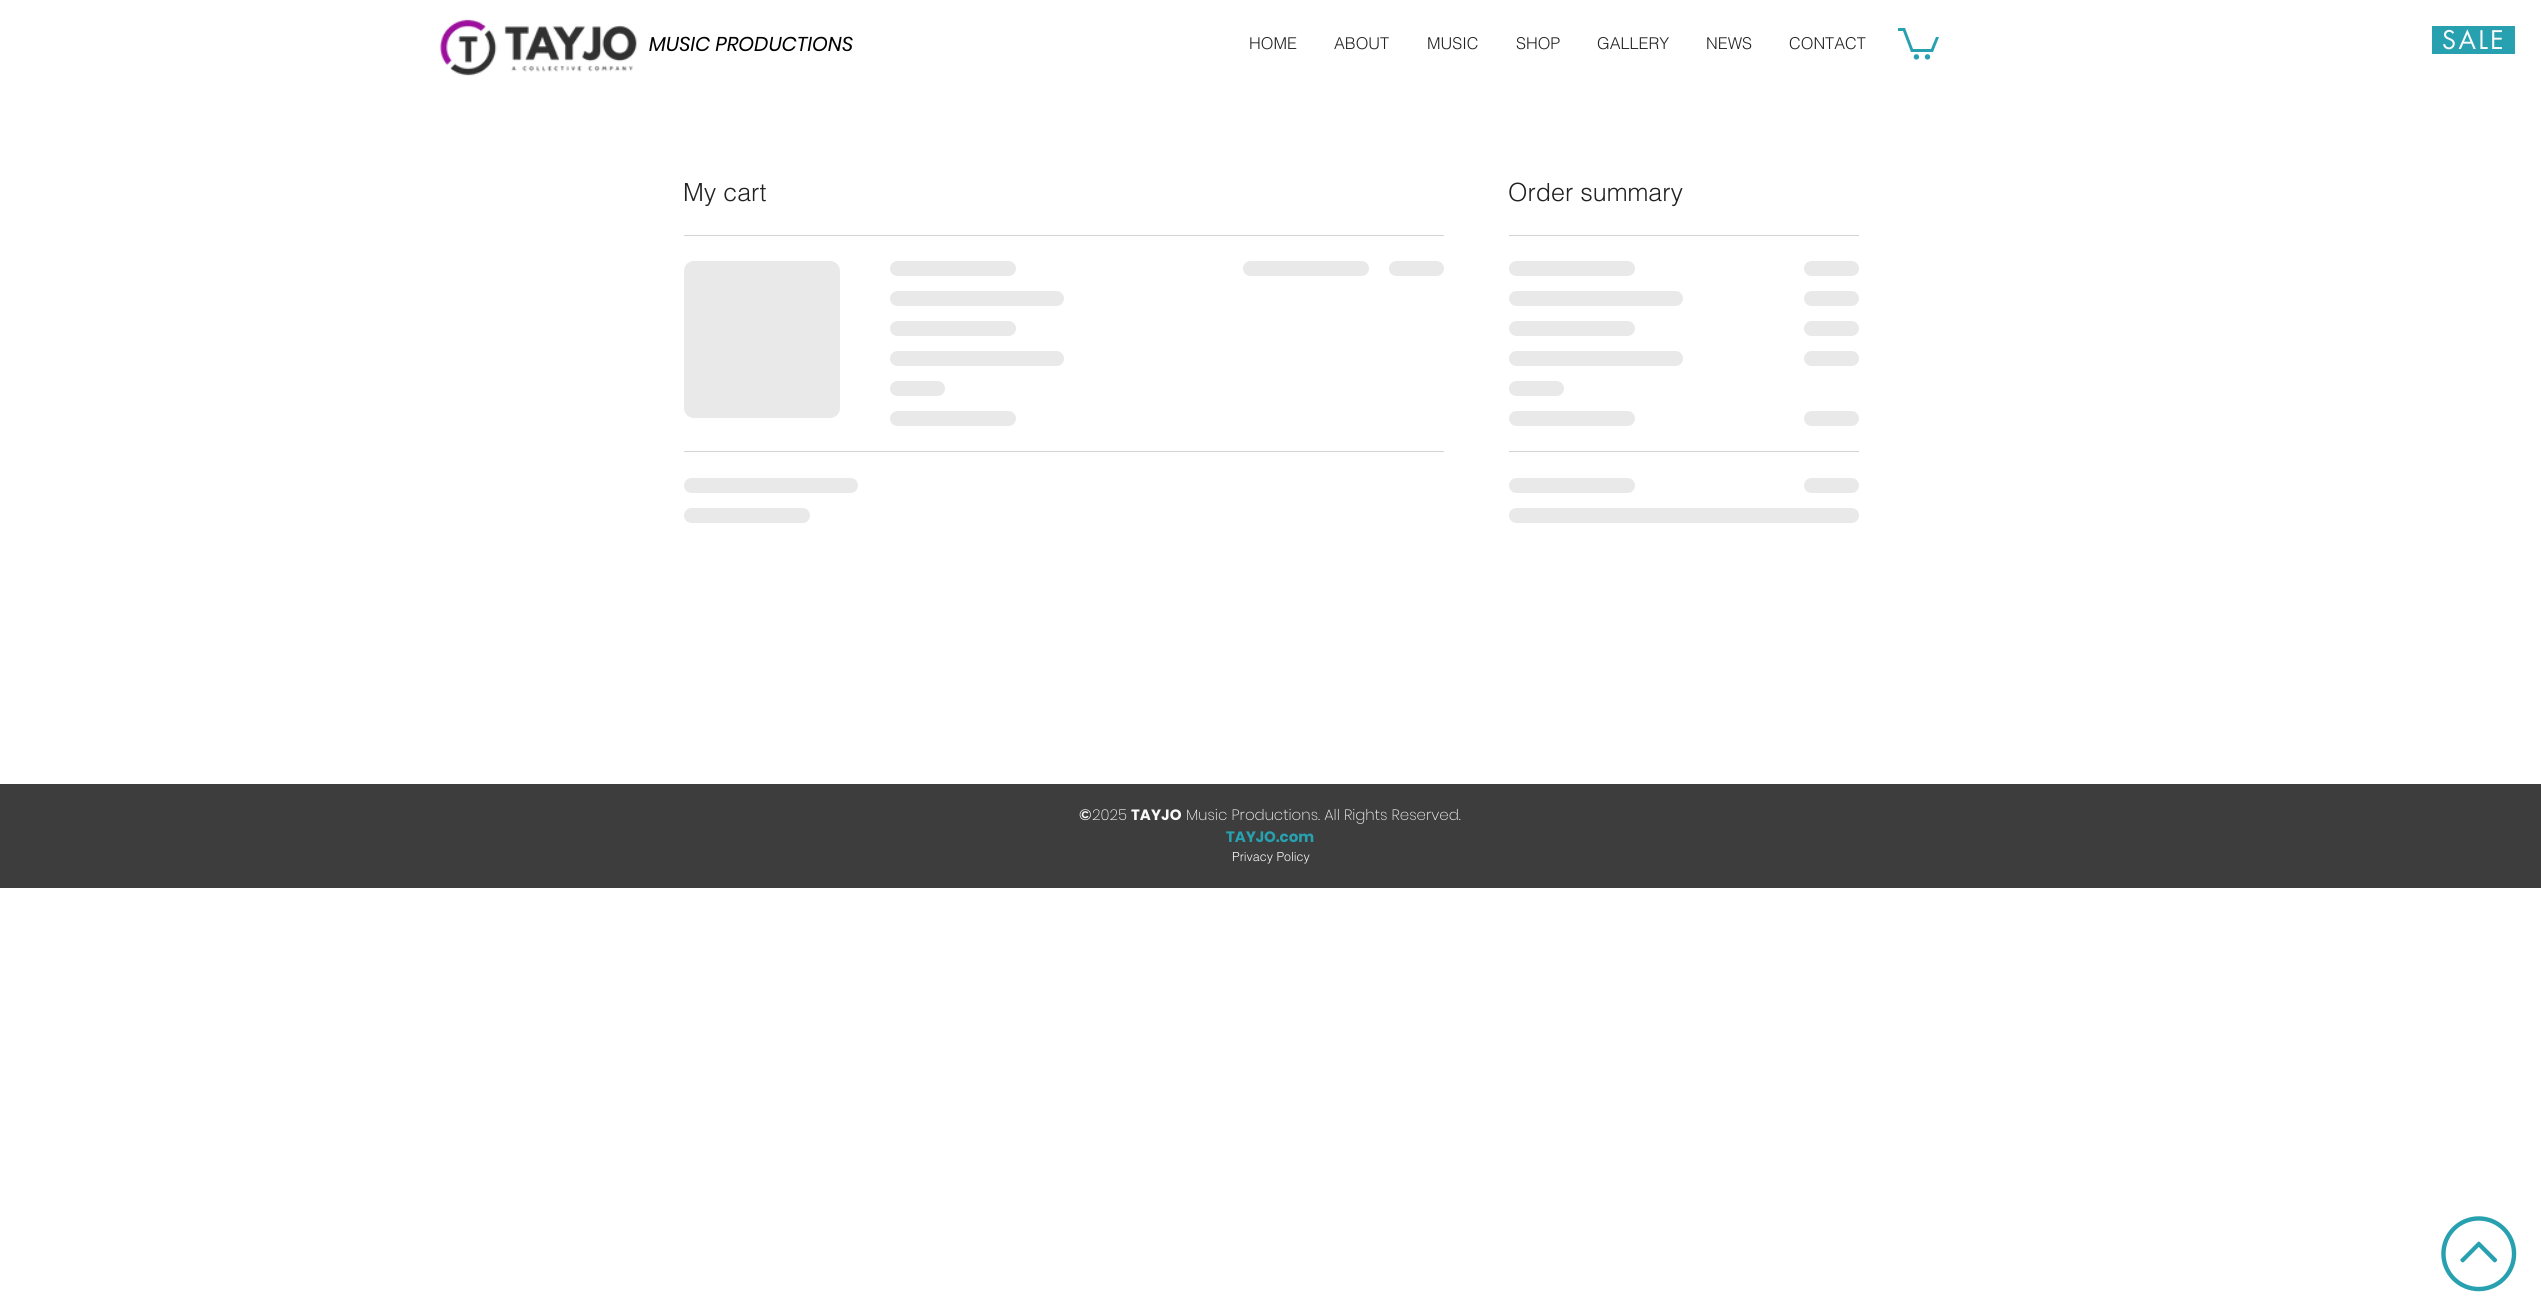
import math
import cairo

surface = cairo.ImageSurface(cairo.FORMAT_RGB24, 2541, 1316)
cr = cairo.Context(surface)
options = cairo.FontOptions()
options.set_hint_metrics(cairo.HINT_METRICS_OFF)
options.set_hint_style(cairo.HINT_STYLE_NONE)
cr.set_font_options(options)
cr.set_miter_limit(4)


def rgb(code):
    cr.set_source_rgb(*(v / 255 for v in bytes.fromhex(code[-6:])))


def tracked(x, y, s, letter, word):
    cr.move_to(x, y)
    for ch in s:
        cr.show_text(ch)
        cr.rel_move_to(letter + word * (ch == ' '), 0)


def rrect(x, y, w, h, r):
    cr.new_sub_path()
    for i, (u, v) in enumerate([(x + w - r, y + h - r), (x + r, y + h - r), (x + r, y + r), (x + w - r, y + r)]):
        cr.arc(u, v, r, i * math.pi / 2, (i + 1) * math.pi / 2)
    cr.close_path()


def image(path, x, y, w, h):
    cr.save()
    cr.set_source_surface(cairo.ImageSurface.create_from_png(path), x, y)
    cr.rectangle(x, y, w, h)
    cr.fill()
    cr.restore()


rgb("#ffffff")
cr.paint()
image("img/1.png", 439, 19, 198, 57)
rgb("#27a0b0")
cr.new_path()
cr.move_to(1939, 37)
cr.line_to(1933, 52)
cr.line_to(1911, 52)
cr.line_to(1903, 31)
cr.line_to(1898, 31)
cr.line_to(1898, 28)
cr.line_to(1905, 28)
cr.line_to(1913, 49)
cr.line_to(1931, 49)
cr.line_to(1936, 37)
cr.fill()
cr.arc(1927.5, 56.9, 2.7, 0, 2 * math.pi)
cr.fill()
cr.arc(1916.4, 56.9, 2.7, 0, 2 * math.pi)
cr.fill()
cr.rectangle(2432, 26, 83, 28)
cr.fill()
rgb("#d3d3d3")
cr.rectangle(684, 235, 760, 1)
cr.fill()
gradient = cairo.LinearGradient(684, 339, 1309, 339)
gradient.add_color_stop_rgba(0.25, 0.914, 0.914, 0.914, 1)
gradient.add_color_stop_rgba(0.37, 0.827, 0.827, 0.827, 1)
gradient.add_color_stop_rgba(0.63, 0.914, 0.914, 0.914, 1)
cr.set_source(gradient)
rrect(684, 261, 156, 157, 10)
cr.fill()
gradient = cairo.LinearGradient(890, 269, 1395, 269)
gradient.add_color_stop_rgba(0.25, 0.914, 0.914, 0.914, 1)
gradient.add_color_stop_rgba(0.37, 0.827, 0.827, 0.827, 1)
gradient.add_color_stop_rgba(0.63, 0.914, 0.914, 0.914, 1)
cr.set_source(gradient)
rrect(890, 261, 126, 15, 7.5)
cr.fill()
gradient = cairo.LinearGradient(890, 299, 1585, 299)
gradient.add_color_stop_rgba(0.25, 0.914, 0.914, 0.914, 1)
gradient.add_color_stop_rgba(0.37, 0.827, 0.827, 0.827, 1)
gradient.add_color_stop_rgba(0.63, 0.914, 0.914, 0.914, 1)
cr.set_source(gradient)
rrect(890, 291, 174, 15, 7.5)
cr.fill()
gradient = cairo.LinearGradient(890, 329, 1395, 329)
gradient.add_color_stop_rgba(0.25, 0.914, 0.914, 0.914, 1)
gradient.add_color_stop_rgba(0.37, 0.827, 0.827, 0.827, 1)
gradient.add_color_stop_rgba(0.63, 0.914, 0.914, 0.914, 1)
cr.set_source(gradient)
rrect(890, 321, 126, 15, 7.5)
cr.fill()
gradient = cairo.LinearGradient(890, 359, 1585, 359)
gradient.add_color_stop_rgba(0.25, 0.914, 0.914, 0.914, 1)
gradient.add_color_stop_rgba(0.37, 0.827, 0.827, 0.827, 1)
gradient.add_color_stop_rgba(0.63, 0.914, 0.914, 0.914, 1)
cr.set_source(gradient)
rrect(890, 351, 174, 15, 7.5)
cr.fill()
gradient = cairo.LinearGradient(890, 389, 1110, 389)
gradient.add_color_stop_rgba(0.25, 0.914, 0.914, 0.914, 1)
gradient.add_color_stop_rgba(0.37, 0.827, 0.827, 0.827, 1)
gradient.add_color_stop_rgba(0.63, 0.914, 0.914, 0.914, 1)
cr.set_source(gradient)
rrect(890, 381, 55, 15, 7.5)
cr.fill()
gradient = cairo.LinearGradient(890, 419, 1395, 419)
gradient.add_color_stop_rgba(0.25, 0.914, 0.914, 0.914, 1)
gradient.add_color_stop_rgba(0.37, 0.827, 0.827, 0.827, 1)
gradient.add_color_stop_rgba(0.63, 0.914, 0.914, 0.914, 1)
cr.set_source(gradient)
rrect(890, 411, 126, 15, 7.5)
cr.fill()
gradient = cairo.LinearGradient(1243, 269, 1748, 269)
gradient.add_color_stop_rgba(0.25, 0.914, 0.914, 0.914, 1)
gradient.add_color_stop_rgba(0.37, 0.827, 0.827, 0.827, 1)
gradient.add_color_stop_rgba(0.63, 0.914, 0.914, 0.914, 1)
cr.set_source(gradient)
rrect(1243, 261, 126, 15, 7.5)
cr.fill()
gradient = cairo.LinearGradient(1389, 269, 1609, 269)
gradient.add_color_stop_rgba(0.25, 0.914, 0.914, 0.914, 1)
gradient.add_color_stop_rgba(0.37, 0.827, 0.827, 0.827, 1)
gradient.add_color_stop_rgba(0.63, 0.914, 0.914, 0.914, 1)
cr.set_source(gradient)
rrect(1389, 261, 55, 15, 7.5)
cr.fill()
rgb("#d3d3d3")
cr.rectangle(684, 451, 760, 1)
cr.fill()
gradient = cairo.LinearGradient(684, 485, 1379, 485)
gradient.add_color_stop_rgba(0.25, 0.914, 0.914, 0.914, 1)
gradient.add_color_stop_rgba(0.37, 0.827, 0.827, 0.827, 1)
gradient.add_color_stop_rgba(0.63, 0.914, 0.914, 0.914, 1)
cr.set_source(gradient)
rrect(684, 478, 174, 15, 7.5)
cr.fill()
gradient = cairo.LinearGradient(684, 515, 1189, 515)
gradient.add_color_stop_rgba(0.25, 0.914, 0.914, 0.914, 1)
gradient.add_color_stop_rgba(0.37, 0.827, 0.827, 0.827, 1)
gradient.add_color_stop_rgba(0.63, 0.914, 0.914, 0.914, 1)
cr.set_source(gradient)
rrect(684, 508, 126, 15, 7.5)
cr.fill()
rgb("#d3d3d3")
cr.rectangle(1509, 235, 350, 1)
cr.fill()
gradient = cairo.LinearGradient(1509, 269, 2014, 269)
gradient.add_color_stop_rgba(0.25, 0.914, 0.914, 0.914, 1)
gradient.add_color_stop_rgba(0.37, 0.827, 0.827, 0.827, 1)
gradient.add_color_stop_rgba(0.63, 0.914, 0.914, 0.914, 1)
cr.set_source(gradient)
rrect(1509, 261, 126, 15, 7.5)
cr.fill()
gradient = cairo.LinearGradient(1804, 269, 2024, 269)
gradient.add_color_stop_rgba(0.25, 0.914, 0.914, 0.914, 1)
gradient.add_color_stop_rgba(0.37, 0.827, 0.827, 0.827, 1)
gradient.add_color_stop_rgba(0.63, 0.914, 0.914, 0.914, 1)
cr.set_source(gradient)
rrect(1804, 261, 55, 15, 7.5)
cr.fill()
gradient = cairo.LinearGradient(1509, 299, 2204, 299)
gradient.add_color_stop_rgba(0.25, 0.914, 0.914, 0.914, 1)
gradient.add_color_stop_rgba(0.37, 0.827, 0.827, 0.827, 1)
gradient.add_color_stop_rgba(0.63, 0.914, 0.914, 0.914, 1)
cr.set_source(gradient)
rrect(1509, 291, 174, 15, 7.5)
cr.fill()
gradient = cairo.LinearGradient(1804, 299, 2024, 299)
gradient.add_color_stop_rgba(0.25, 0.914, 0.914, 0.914, 1)
gradient.add_color_stop_rgba(0.37, 0.827, 0.827, 0.827, 1)
gradient.add_color_stop_rgba(0.63, 0.914, 0.914, 0.914, 1)
cr.set_source(gradient)
rrect(1804, 291, 55, 15, 7.5)
cr.fill()
gradient = cairo.LinearGradient(1509, 329, 2014, 329)
gradient.add_color_stop_rgba(0.25, 0.914, 0.914, 0.914, 1)
gradient.add_color_stop_rgba(0.37, 0.827, 0.827, 0.827, 1)
gradient.add_color_stop_rgba(0.63, 0.914, 0.914, 0.914, 1)
cr.set_source(gradient)
rrect(1509, 321, 126, 15, 7.5)
cr.fill()
gradient = cairo.LinearGradient(1804, 329, 2024, 329)
gradient.add_color_stop_rgba(0.25, 0.914, 0.914, 0.914, 1)
gradient.add_color_stop_rgba(0.37, 0.827, 0.827, 0.827, 1)
gradient.add_color_stop_rgba(0.63, 0.914, 0.914, 0.914, 1)
cr.set_source(gradient)
rrect(1804, 321, 55, 15, 7.5)
cr.fill()
gradient = cairo.LinearGradient(1509, 359, 2204, 359)
gradient.add_color_stop_rgba(0.25, 0.914, 0.914, 0.914, 1)
gradient.add_color_stop_rgba(0.37, 0.827, 0.827, 0.827, 1)
gradient.add_color_stop_rgba(0.63, 0.914, 0.914, 0.914, 1)
cr.set_source(gradient)
rrect(1509, 351, 174, 15, 7.5)
cr.fill()
gradient = cairo.LinearGradient(1804, 359, 2024, 359)
gradient.add_color_stop_rgba(0.25, 0.914, 0.914, 0.914, 1)
gradient.add_color_stop_rgba(0.37, 0.827, 0.827, 0.827, 1)
gradient.add_color_stop_rgba(0.63, 0.914, 0.914, 0.914, 1)
cr.set_source(gradient)
rrect(1804, 351, 55, 15, 7.5)
cr.fill()
gradient = cairo.LinearGradient(1509, 389, 1729, 389)
gradient.add_color_stop_rgba(0.25, 0.914, 0.914, 0.914, 1)
gradient.add_color_stop_rgba(0.37, 0.827, 0.827, 0.827, 1)
gradient.add_color_stop_rgba(0.63, 0.914, 0.914, 0.914, 1)
cr.set_source(gradient)
rrect(1509, 381, 55, 15, 7.5)
cr.fill()
gradient = cairo.LinearGradient(1509, 419, 2014, 419)
gradient.add_color_stop_rgba(0.25, 0.914, 0.914, 0.914, 1)
gradient.add_color_stop_rgba(0.37, 0.827, 0.827, 0.827, 1)
gradient.add_color_stop_rgba(0.63, 0.914, 0.914, 0.914, 1)
cr.set_source(gradient)
rrect(1509, 411, 126, 15, 7.5)
cr.fill()
gradient = cairo.LinearGradient(1804, 419, 2024, 419)
gradient.add_color_stop_rgba(0.25, 0.914, 0.914, 0.914, 1)
gradient.add_color_stop_rgba(0.37, 0.827, 0.827, 0.827, 1)
gradient.add_color_stop_rgba(0.63, 0.914, 0.914, 0.914, 1)
cr.set_source(gradient)
rrect(1804, 411, 55, 15, 7.5)
cr.fill()
rgb("#d3d3d3")
cr.rectangle(1509, 451, 350, 1)
cr.fill()
gradient = cairo.LinearGradient(1509, 485, 2014, 485)
gradient.add_color_stop_rgba(0.25, 0.914, 0.914, 0.914, 1)
gradient.add_color_stop_rgba(0.37, 0.827, 0.827, 0.827, 1)
gradient.add_color_stop_rgba(0.63, 0.914, 0.914, 0.914, 1)
cr.set_source(gradient)
rrect(1509, 478, 126, 15, 7.5)
cr.fill()
gradient = cairo.LinearGradient(1804, 485, 2024, 485)
gradient.add_color_stop_rgba(0.25, 0.914, 0.914, 0.914, 1)
gradient.add_color_stop_rgba(0.37, 0.827, 0.827, 0.827, 1)
gradient.add_color_stop_rgba(0.63, 0.914, 0.914, 0.914, 1)
cr.set_source(gradient)
rrect(1804, 478, 55, 15, 7.5)
cr.fill()
gradient = cairo.LinearGradient(1509, 515, 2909, 515)
gradient.add_color_stop_rgba(0.25, 0.914, 0.914, 0.914, 1)
gradient.add_color_stop_rgba(0.37, 0.827, 0.827, 0.827, 1)
gradient.add_color_stop_rgba(0.63, 0.914, 0.914, 0.914, 1)
cr.set_source(gradient)
rrect(1509, 508, 350, 15, 7.5)
cr.fill()
rgb("#3d3d3d")
cr.rectangle(0, 784, 2541, 104)
cr.fill()
image("img/2.png", 2441, 1216, 76, 76)
cr.select_font_face("Poppins", cairo.FONT_SLANT_ITALIC)
cr.set_font_size(20)
rgb("#000000")
cr.move_to(649, 51)
cr.show_text("MUSIC PRODUCTIONS")
cr.select_font_face("helvetica Light")
cr.set_font_size(16.25)
rgb("#222222")
for x, y, s in [
    (1249, 49, "HOME"),
    (1334, 49, "ABOUT"),
    (1427, 49, "MUSIC"),
    (1516, 49, "SHOP"),
    (1597, 49, "GALLERY"),
    (1706, 49, "NEWS"),
    (1789, 49, "CONTACT"),
]:
    cr.move_to(x, y)
    cr.show_text(s)
cr.select_font_face("futura")
cr.set_font_size(25)
rgb("#fafafa")
tracked(2442, 49, "SALE", 2.5, 0)
cr.select_font_face("helvetica Light")
rgb("#222222")
cr.move_to(683, 201)
cr.show_text("My cart")
cr.move_to(1508, 201)
cr.show_text("Order summary")
cr.select_font_face("Raleway SemiBold")
cr.set_font_size(15)
rgb("#fafafa")
cr.move_to(1079, 820)
cr.show_text("©")
cr.select_font_face("Poppins ExtraLight")
cr.move_to(1092, 820)
cr.show_text("2025")
cr.select_font_face("Poppins", cairo.FONT_SLANT_NORMAL, cairo.FONT_WEIGHT_BOLD)
cr.move_to(1131, 820)
cr.show_text("TAYJO")
cr.select_font_face("Poppins ExtraLight")
cr.move_to(1186, 820)
cr.show_text("Music Productions. All Rights Reserved.")
cr.select_font_face("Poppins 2", cairo.FONT_SLANT_NORMAL, cairo.FONT_WEIGHT_BOLD)
rgb("#27a0b0")
cr.move_to(1226, 842)
cr.show_text("TAYJO.com")
cr.select_font_face("helvetica Light")
cr.set_font_size(12.5)
rgb("#fafafa")
cr.move_to(1232, 861)
cr.show_text("Privacy Policy")
surface.write_to_png("page.png")
